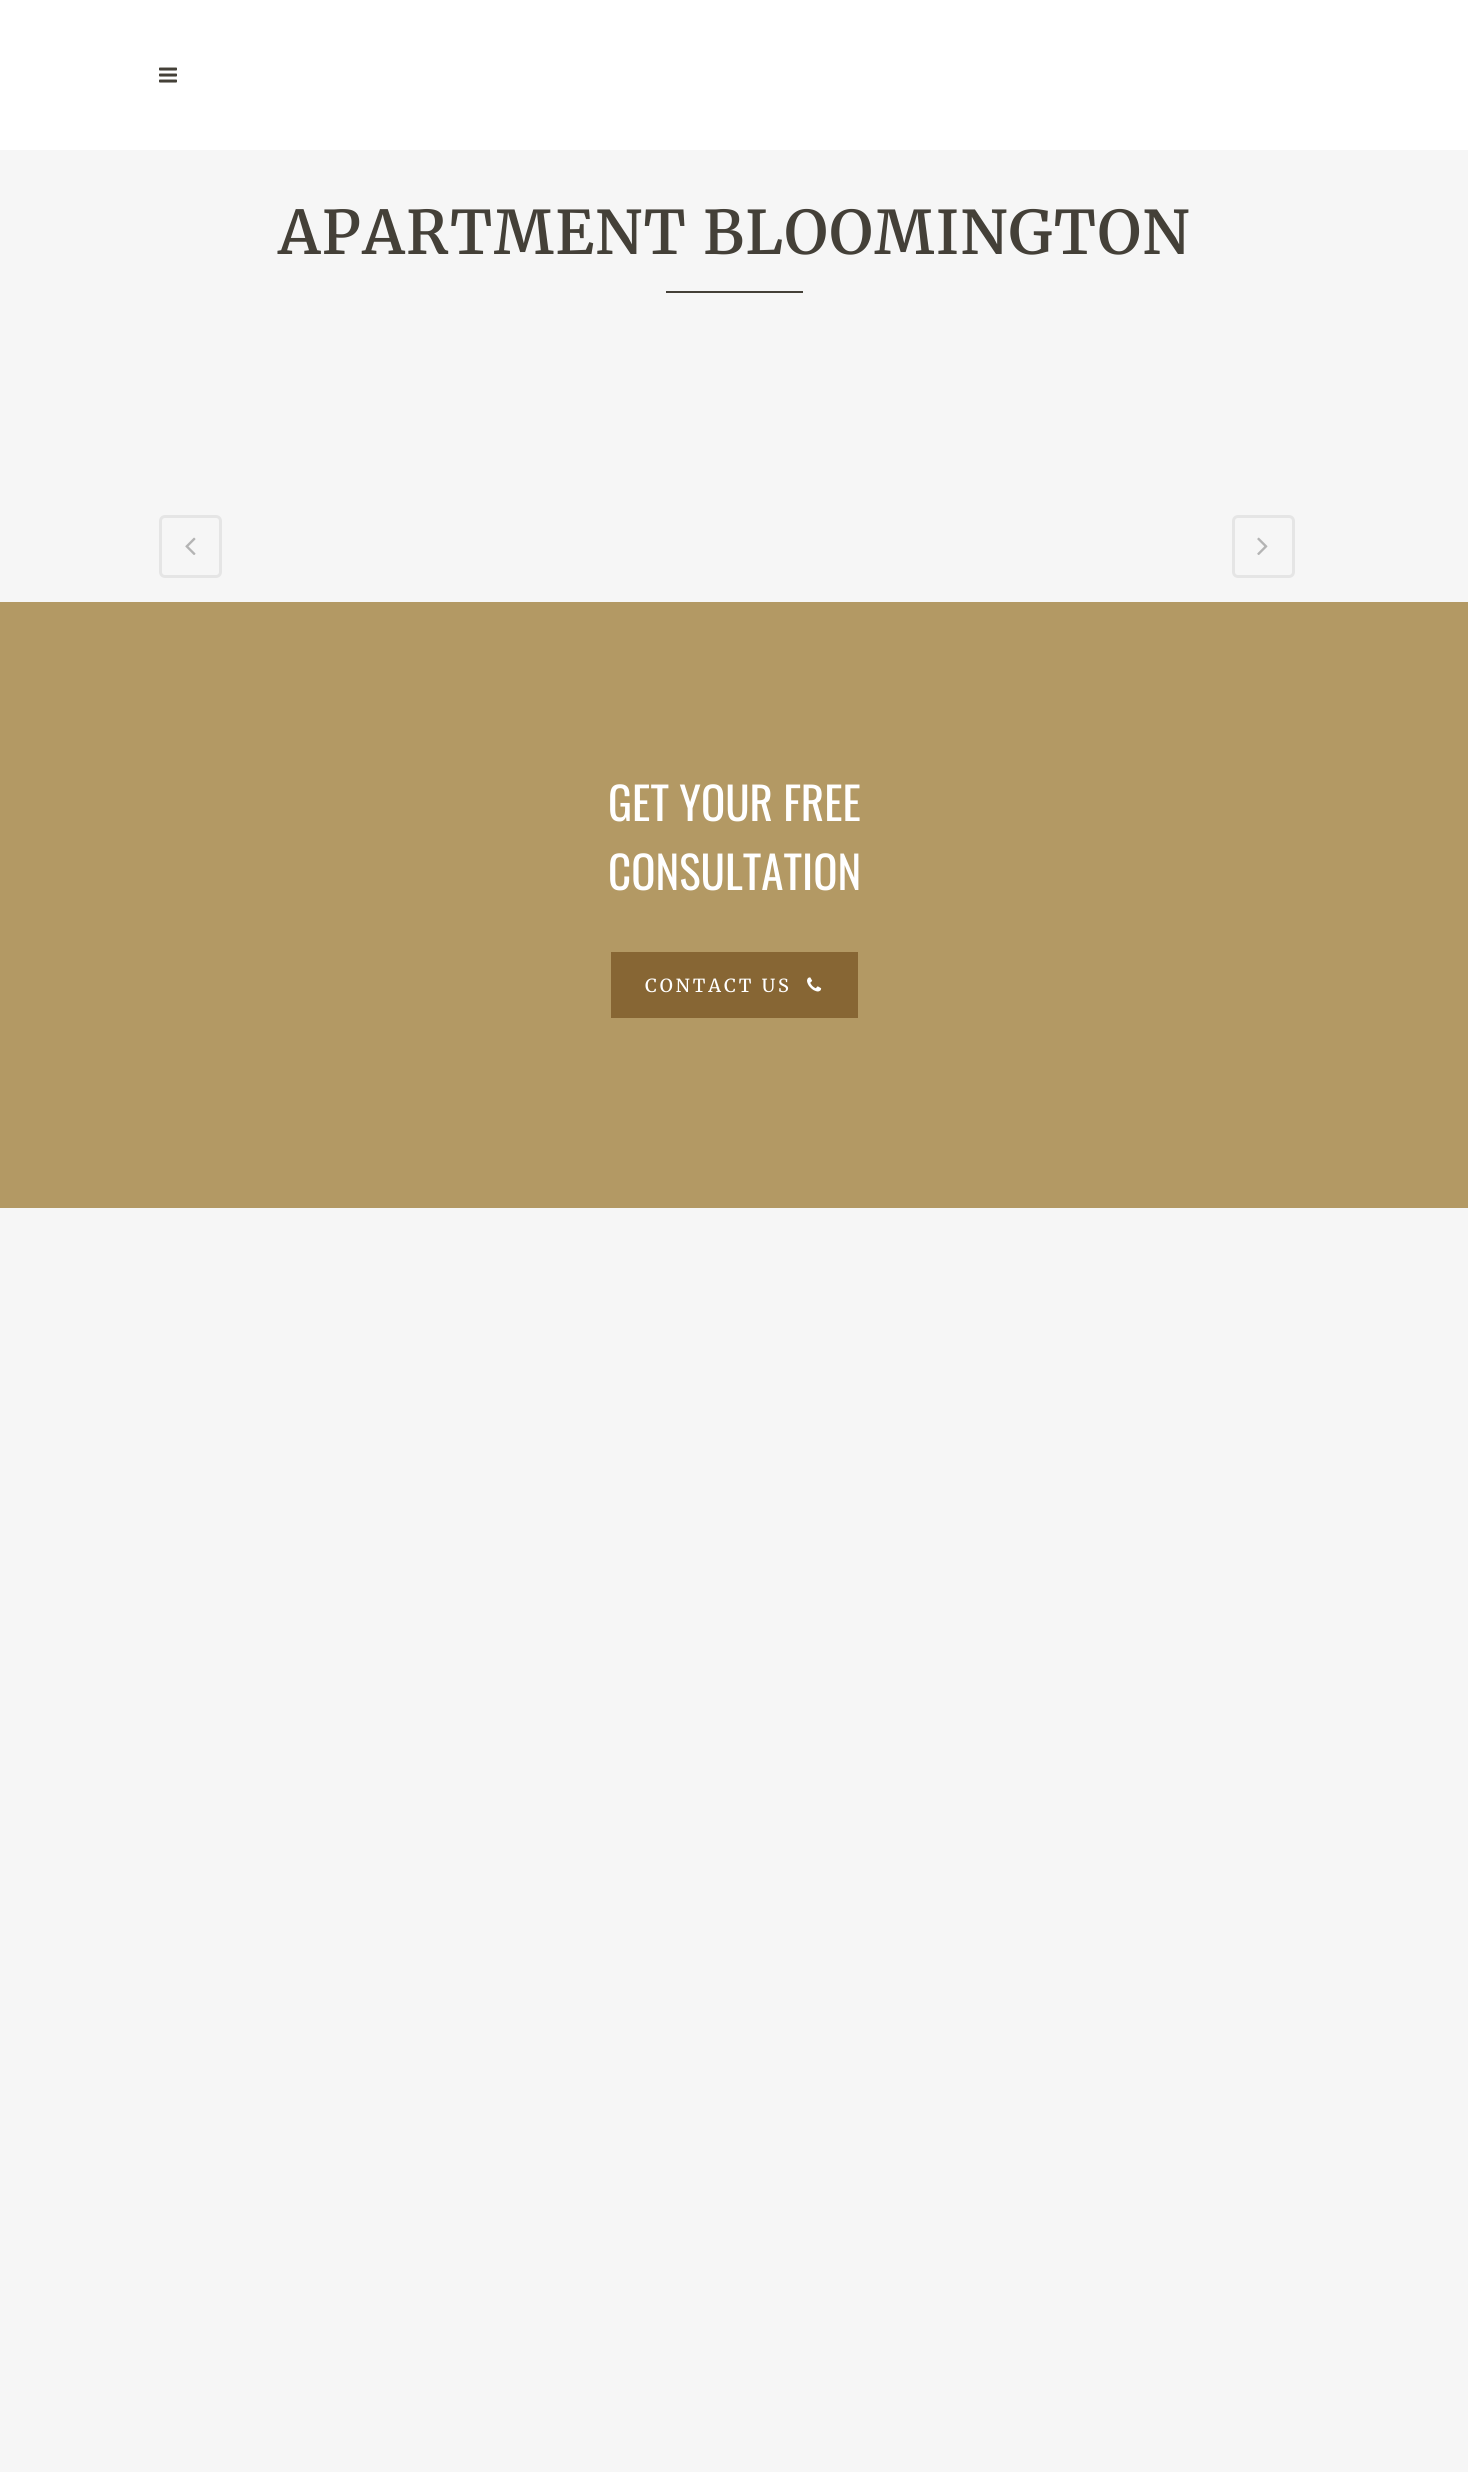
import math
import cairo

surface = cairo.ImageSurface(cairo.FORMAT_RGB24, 1468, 2472)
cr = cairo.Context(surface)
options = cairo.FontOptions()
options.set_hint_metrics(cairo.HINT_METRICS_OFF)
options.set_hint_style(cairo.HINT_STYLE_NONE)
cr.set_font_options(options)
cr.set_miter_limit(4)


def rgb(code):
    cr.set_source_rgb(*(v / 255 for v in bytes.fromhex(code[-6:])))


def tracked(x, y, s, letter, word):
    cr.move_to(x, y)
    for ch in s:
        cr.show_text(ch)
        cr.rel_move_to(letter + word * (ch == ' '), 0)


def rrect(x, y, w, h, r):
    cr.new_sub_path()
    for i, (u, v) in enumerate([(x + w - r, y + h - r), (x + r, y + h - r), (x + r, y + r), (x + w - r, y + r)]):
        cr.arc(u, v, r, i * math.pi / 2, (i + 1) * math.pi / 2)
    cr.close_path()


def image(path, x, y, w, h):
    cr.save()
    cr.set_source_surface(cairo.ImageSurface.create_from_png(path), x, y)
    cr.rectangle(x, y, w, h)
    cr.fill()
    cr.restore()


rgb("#f6f6f6")
cr.paint()
rgb("#ffffff")
cr.rectangle(0, 0, 1468, 150)
cr.fill()
image("img/1.png", 159, 67, 18, 16)
rgb("#444038")
cr.rectangle(666, 291, 137, 2)
cr.fill()
rrect(160.5, 516.5, 60, 60, 4.5)
rgb("#e5e5e5")
cr.set_line_width(3)
cr.stroke()
image("img/2.png", 185, 537, 11, 18)
rrect(1233.5, 516.5, 60, 60, 4.5)
cr.stroke()
image("img/3.png", 1257, 537, 11, 18)
rgb("#b39964")
cr.rectangle(0, 602, 1468, 606)
cr.fill()
rgb("#876634")
cr.rectangle(611, 952, 247, 66)
cr.fill()
image("img/4.png", 807, 977, 15, 15)
cr.select_font_face("Merriweather SemiBold")
cr.set_font_size(60)
rgb("#444038")
tracked(278, 254, "APARTMENT BLOOMINGTON", 1.5, 0)
cr.select_font_face("Oswald")
cr.set_font_size(45)
rgb("#ffffff")
cr.move_to(608, 821)
cr.show_text("GET YOUR FREE")
cr.move_to(608, 890)
cr.show_text("CONSULTATION")
cr.select_font_face("Merriweather Medium")
cr.set_font_size(18)
tracked(645, 992, "CONTACT US", 3, 0)
surface.write_to_png("page.png")
